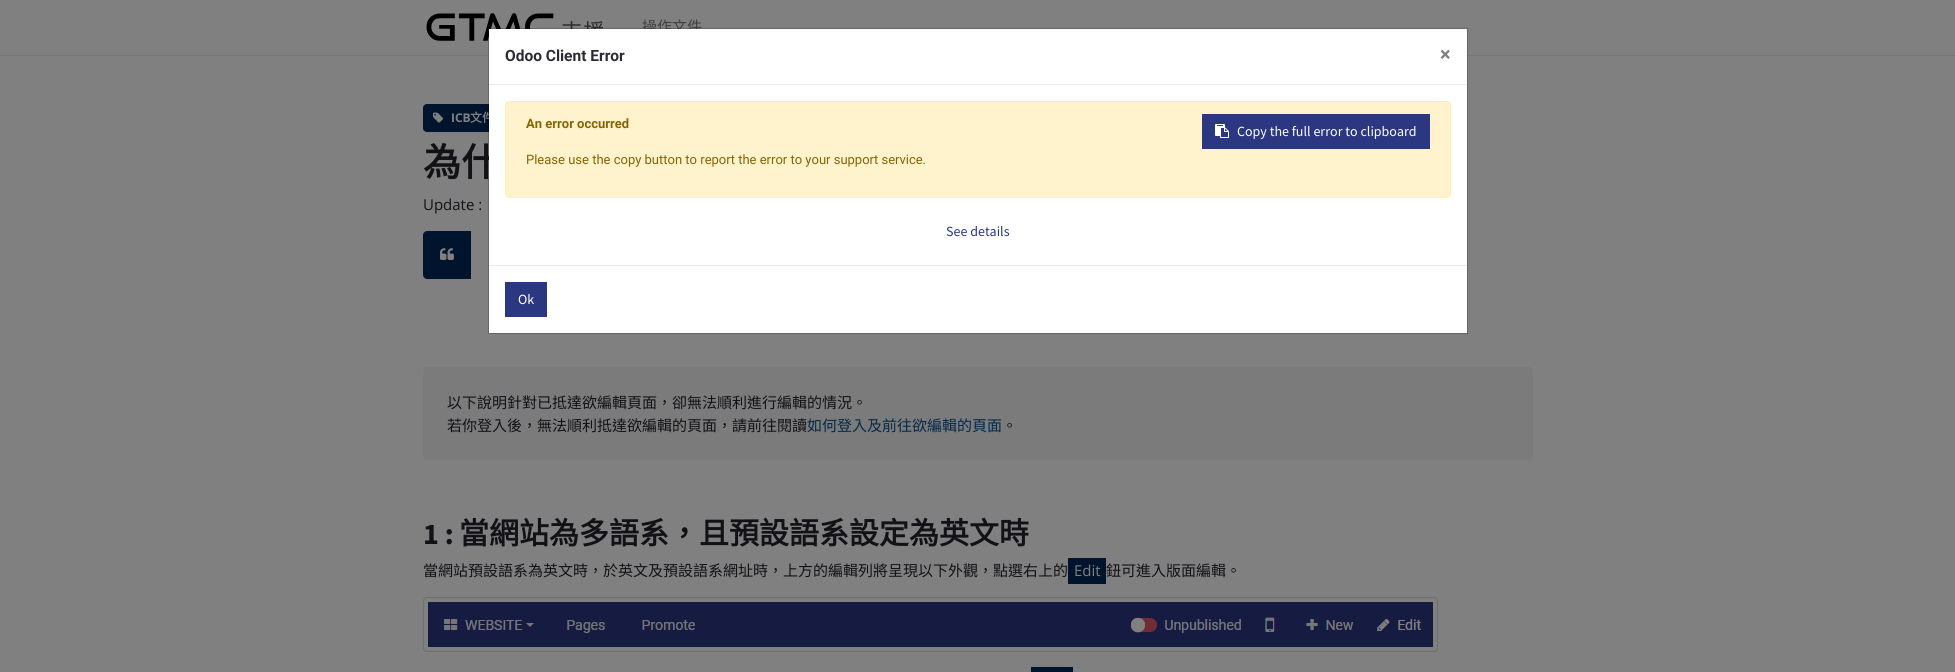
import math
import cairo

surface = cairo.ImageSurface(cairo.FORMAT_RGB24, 1955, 672)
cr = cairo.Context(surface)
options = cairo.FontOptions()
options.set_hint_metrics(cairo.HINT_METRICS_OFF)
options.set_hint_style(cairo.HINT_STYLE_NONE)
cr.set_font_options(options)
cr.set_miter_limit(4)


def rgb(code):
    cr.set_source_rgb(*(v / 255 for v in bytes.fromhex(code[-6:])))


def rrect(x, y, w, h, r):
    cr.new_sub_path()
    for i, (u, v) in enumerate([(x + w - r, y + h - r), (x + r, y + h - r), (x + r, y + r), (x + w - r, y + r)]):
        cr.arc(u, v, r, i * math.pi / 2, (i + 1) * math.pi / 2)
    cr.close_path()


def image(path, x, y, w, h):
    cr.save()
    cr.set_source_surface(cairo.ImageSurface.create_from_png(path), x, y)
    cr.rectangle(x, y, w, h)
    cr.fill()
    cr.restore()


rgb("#808080")
cr.paint()
rgb("#777777")
cr.rectangle(0, 55, 1955, 1)
cr.fill()
image("img/1.png", 426, 13, 177, 28)
rgb("#00152d")
rrect(423, 104, 79, 28, 4)
cr.fill()
image("img/2.png", 433, 112, 11, 11)
cr.new_path()
cr.move_to(427, 231)
cr.line_to(471, 231)
cr.line_to(471, 279)
cr.line_to(427, 279)
cr.curve_to(425, 279, 423, 277, 423, 275)
cr.line_to(423, 235)
cr.curve_to(423, 233, 425, 231, 427, 231)
cr.close_path()
cr.fill()
image("img/3.png", 440, 248, 14, 12)
rgb("#7b7b7b")
rrect(423, 367, 1110, 93, 4)
cr.fill()
rgb("#00152d")
cr.rectangle(1068, 558, 38, 26)
cr.fill()
rrect(423.5, 597.5, 1014, 54, 3.5)
rgb("#706f73")
cr.set_line_width(1)
cr.stroke()
image("img/4.png", 428, 602, 1005, 45)
rgb("#00152d")
cr.rectangle(1031, 667, 42, 5)
cr.fill()
cr.select_font_face("Noto Sans CJK TC")
cr.set_font_size(15)
rgb("#404040")
cr.move_to(642, 32)
cr.show_text("操作文件")
cr.select_font_face("Open Sans", cairo.FONT_SLANT_NORMAL, cairo.FONT_WEIGHT_BOLD)
cr.set_font_size(12)
rgb("#808080")
cr.move_to(451, 122)
cr.show_text("ICB")
cr.select_font_face("Noto Sans CJK TC", cairo.FONT_SLANT_NORMAL, cairo.FONT_WEIGHT_BOLD)
cr.move_to(470, 122)
cr.show_text("文件")
cr.set_font_size(38)
rgb("#121115")
cr.move_to(423, 176)
cr.show_text("為什")
cr.select_font_face("Open Sans")
cr.set_font_size(15)
cr.move_to(423, 210)
cr.show_text("Update :")
cr.select_font_face("Noto Sans CJK TC")
cr.move_to(447, 408)
cr.show_text("以下說明針對已抵達欲編輯頁面，卻無法順利進行編輯的情況。")
cr.move_to(447, 431)
cr.show_text("若你登入後，無法順利抵達欲編輯的頁面，請前往閱讀")
rgb("#04294a")
cr.move_to(807, 431)
cr.show_text("如何登入及前往欲編輯的頁面")
rgb("#121115")
cr.move_to(1002, 431)
cr.show_text("。")
cr.select_font_face("Source Sans Pro", cairo.FONT_SLANT_NORMAL, cairo.FONT_WEIGHT_BOLD)
cr.set_font_size(30)
cr.move_to(423, 544)
cr.show_text("1 :")
cr.select_font_face("Noto Sans CJK TC", cairo.FONT_SLANT_NORMAL, cairo.FONT_WEIGHT_BOLD)
cr.move_to(459, 544)
cr.show_text("當網站為多語系，且預設語系設定為英文時")
cr.select_font_face("Noto Sans CJK TC")
cr.set_font_size(15)
cr.move_to(423, 576)
cr.show_text("當網站預設語系為英文時，於英文及預設語系網址時，上方的編輯列將呈現以下外觀，點選右上的")
cr.select_font_face("Open Sans")
rgb("#808080")
cr.move_to(1074, 576)
cr.show_text("Edit")
cr.select_font_face("Noto Sans CJK TC")
rgb("#121115")
cr.move_to(1106, 576)
cr.show_text("鈕可進入版面編輯。")
rgb("#ffffff")
cr.rectangle(489, 29, 978, 304)
cr.fill()
cr.rectangle(488.5, 28.5, 979, 305)
cr.set_source_rgba(0, 0, 0, 0.2)
cr.stroke()
rgb("#e9ecef")
cr.rectangle(489, 84, 978, 1)
cr.fill()
cr.select_font_face("Roboto", cairo.FONT_SLANT_NORMAL, cairo.FONT_WEIGHT_BOLD)
cr.set_font_size(15.5)
rgb("#2b2b33")
cr.move_to(505, 61)
cr.show_text("Odoo Client Error")
cr.set_font_size(20)
rgb("#808080")
cr.move_to(1440, 61)
cr.show_text("×")
rgb("#fff3cd")
rrect(505.5, 101.5, 945, 96, 3.5)
cr.fill_preserve()
rgb("#ffeeba")
cr.stroke()
cr.set_font_size(13)
rgb("#856404")
cr.move_to(526, 128)
cr.show_text("An error occurred")
rgb("#2c3782")
cr.rectangle(1202, 114, 228, 35)
cr.fill()
image("img/5.png", 1215, 124, 14, 14)
cr.select_font_face("Source Sans Pro")
cr.set_font_size(14)
rgb("#ffffff")
cr.move_to(1237, 136)
cr.show_text("Copy the full error to clipboard")
cr.select_font_face("Roboto")
cr.set_font_size(13)
rgb("#856404")
cr.move_to(526, 164)
cr.show_text("Please use the copy button to report the error to your support service.")
cr.select_font_face("Source Sans Pro")
cr.set_font_size(14)
rgb("#2c3782")
cr.move_to(946, 236)
cr.show_text("See details")
rgb("#e9ecef")
cr.rectangle(489, 265, 978, 1)
cr.fill()
rgb("#2c3782")
cr.rectangle(505, 282, 42, 35)
cr.fill()
rgb("#ffffff")
cr.move_to(518, 304)
cr.show_text("Ok")
surface.write_to_png("page.png")
